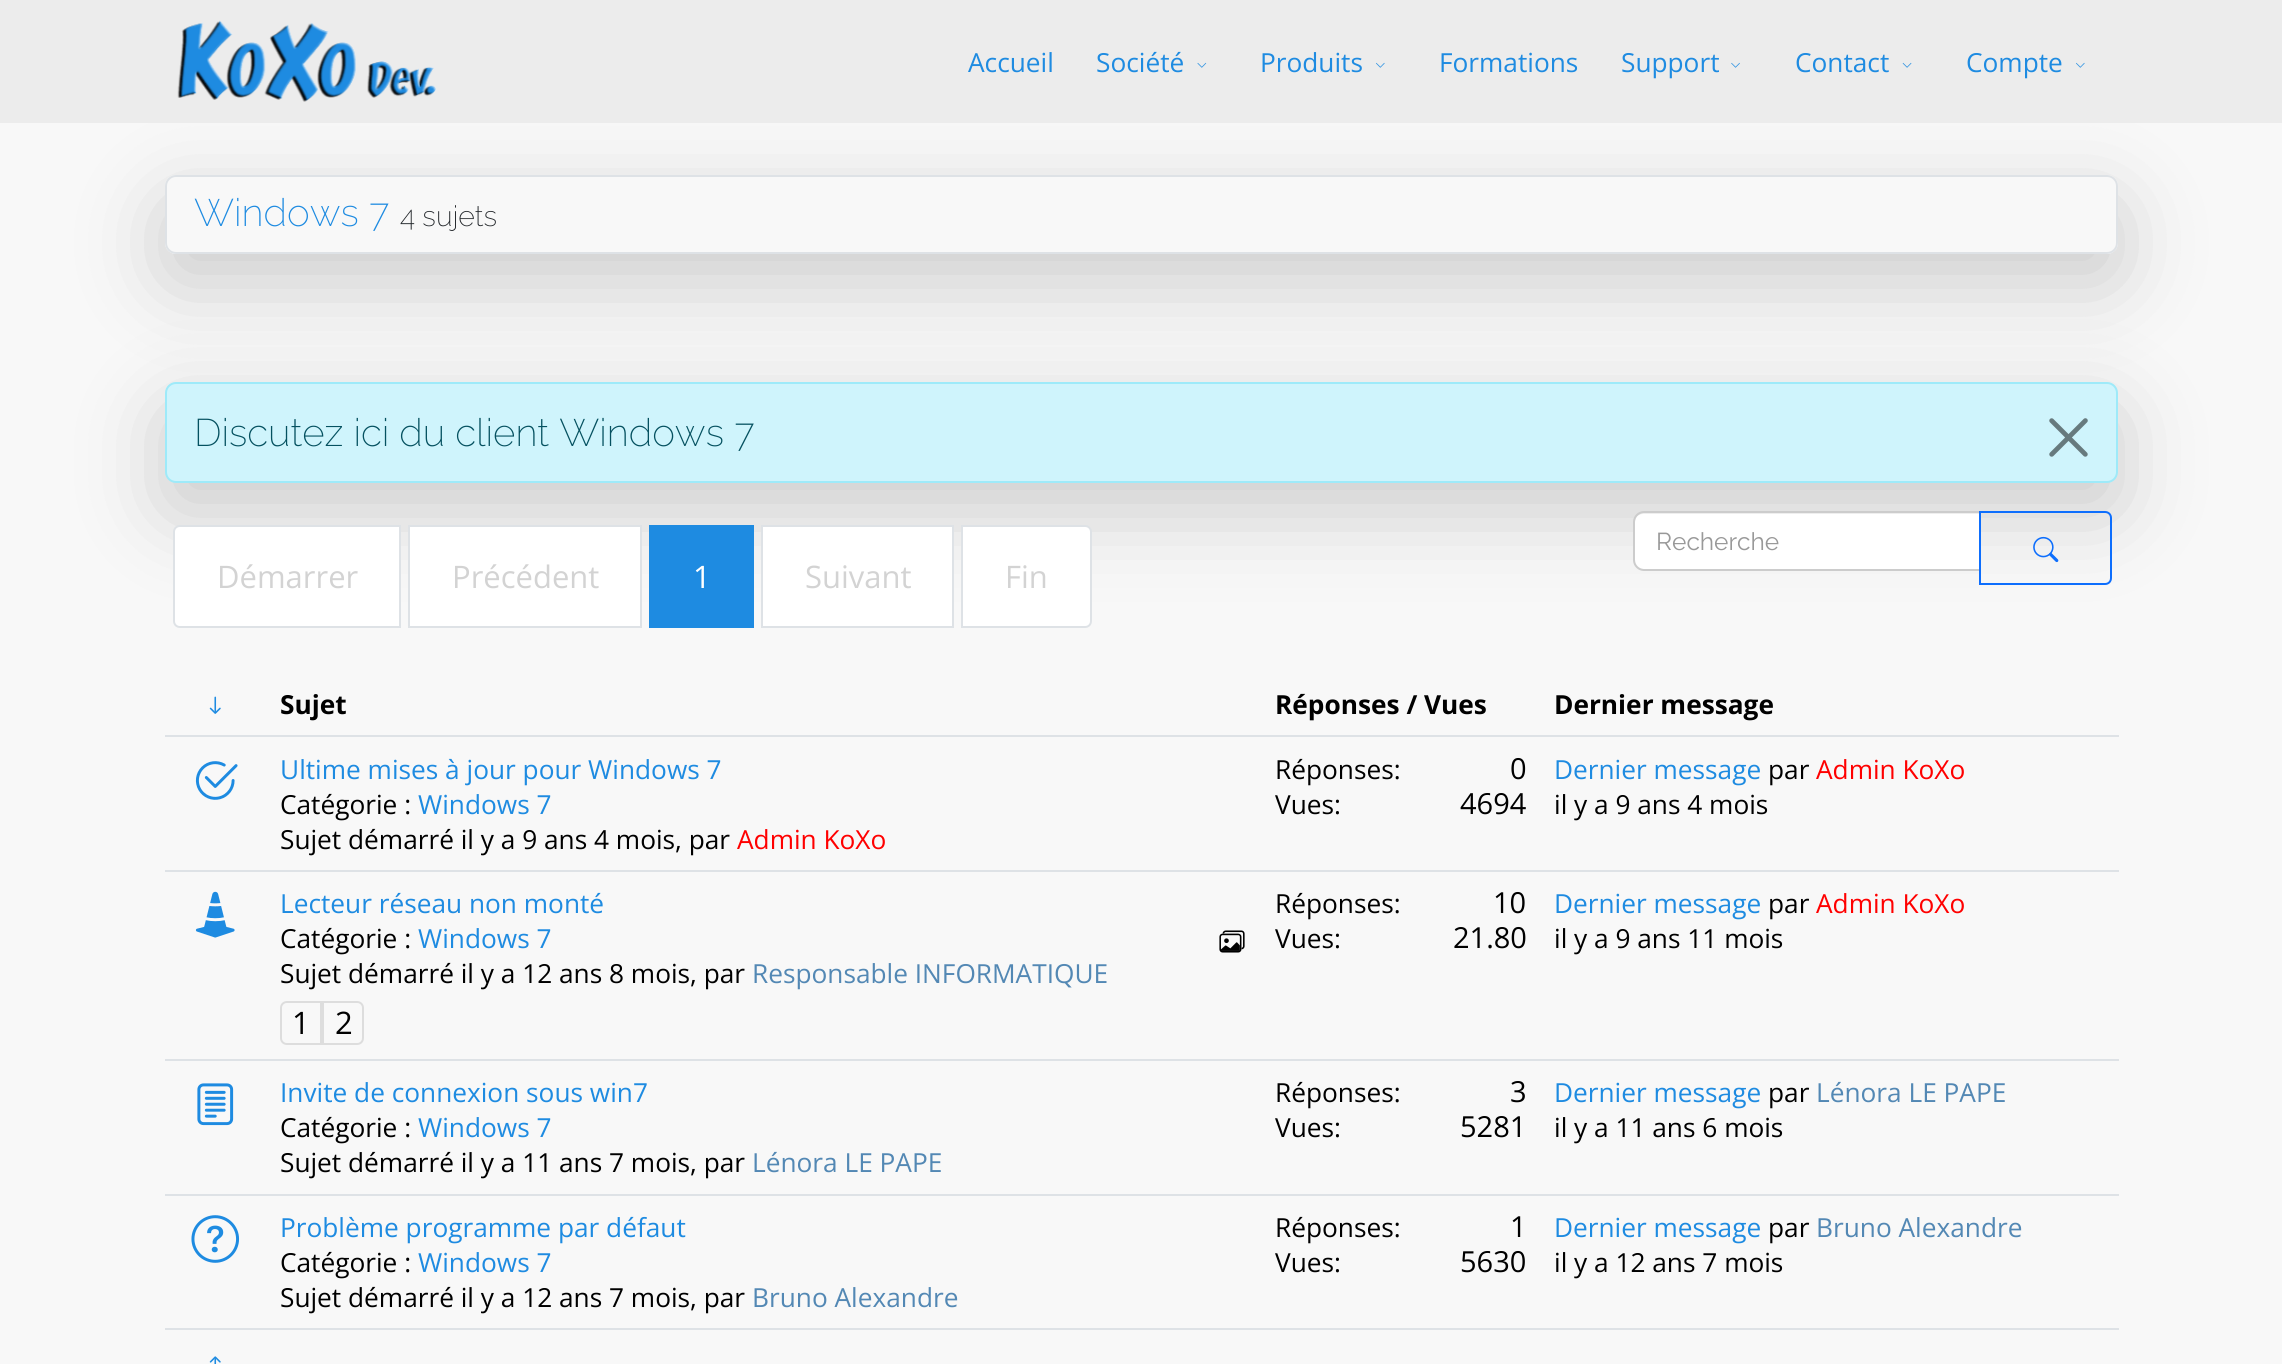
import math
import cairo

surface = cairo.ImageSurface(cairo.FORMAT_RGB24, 2282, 1364)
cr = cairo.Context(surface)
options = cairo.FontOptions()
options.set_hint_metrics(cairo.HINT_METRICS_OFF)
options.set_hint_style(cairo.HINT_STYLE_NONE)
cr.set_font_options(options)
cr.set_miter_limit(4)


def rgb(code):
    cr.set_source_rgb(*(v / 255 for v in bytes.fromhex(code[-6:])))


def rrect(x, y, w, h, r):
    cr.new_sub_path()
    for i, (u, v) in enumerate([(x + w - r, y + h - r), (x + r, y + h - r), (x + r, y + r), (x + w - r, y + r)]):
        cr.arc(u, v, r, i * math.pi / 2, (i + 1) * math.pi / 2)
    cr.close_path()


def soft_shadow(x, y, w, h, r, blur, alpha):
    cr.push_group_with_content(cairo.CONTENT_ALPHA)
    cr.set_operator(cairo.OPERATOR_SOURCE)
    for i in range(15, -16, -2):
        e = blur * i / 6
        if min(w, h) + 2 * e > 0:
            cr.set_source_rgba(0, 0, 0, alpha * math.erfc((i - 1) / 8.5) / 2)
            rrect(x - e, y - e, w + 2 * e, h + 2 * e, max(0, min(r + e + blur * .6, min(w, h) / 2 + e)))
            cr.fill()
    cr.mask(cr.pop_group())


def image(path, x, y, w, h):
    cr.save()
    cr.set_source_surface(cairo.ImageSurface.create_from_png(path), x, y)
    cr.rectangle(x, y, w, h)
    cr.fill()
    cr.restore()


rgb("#f8f8f8")
cr.paint()
cr.save()
cr.set_fill_rule(cairo.FILL_RULE_EVEN_ODD)
cr.new_path()
cr.move_to(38, 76)
cr.line_to(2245, 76)
cr.line_to(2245, 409)
cr.line_to(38, 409)
cr.close_path()
cr.move_to(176, 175)
cr.line_to(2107, 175)
cr.curve_to(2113, 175, 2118, 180, 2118, 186)
cr.line_to(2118, 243)
cr.curve_to(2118, 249, 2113, 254, 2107, 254)
cr.line_to(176, 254)
cr.curve_to(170, 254, 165, 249, 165, 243)
cr.line_to(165, 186)
cr.curve_to(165, 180, 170, 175, 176, 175)
cr.close_path()
cr.clip()
rgb("#000000")
soft_shadow(165, 203, 1953, 79, 11, 42, 0.18)
cr.restore()
rgb("#ececec")
cr.rectangle(0, 0, 2282, 123)
cr.fill()
image("img/1.png", 177, 20, 259, 82)
image("img/2.png", 1197, 62, 10, 6)
image("img/3.png", 1376, 62, 9, 6)
image("img/4.png", 1731, 62, 9, 6)
image("img/5.png", 1902, 62, 10, 6)
image("img/3.png", 2076, 62, 9, 6)
rrect(166, 176, 1951, 77, 10)
rgb("#dee2e6")
cr.stroke()
rgb("#000000")
soft_shadow(165, 410, 1953, 101, 11, 42, 0.18)
rgb("#cff4fc")
rrect(166, 383, 1951, 99, 10)
cr.fill_preserve()
rgb("#9eeaf9")
cr.stroke()
image("img/6.png", 2049, 418, 39, 39)
rgb("#ffffff")
cr.new_path()
cr.move_to(1644, 513)
cr.line_to(1979, 513)
cr.line_to(1979, 569)
cr.line_to(1644, 569)
cr.curve_to(1639, 569, 1635, 565, 1635, 560)
cr.line_to(1635, 522)
cr.curve_to(1635, 517, 1639, 513, 1644, 513)
cr.close_path()
cr.fill()
cr.set_source_rgba(0, 0, 0, 0.07)
cr.new_path()
cr.move_to(1643, 514)
cr.line_to(1979, 514)
cr.line_to(1979, 513)
cr.line_to(1644, 513)
cr.curve_to(1641, 513, 1639, 514, 1637, 516)
cr.curve_to(1639, 515, 1641, 514, 1643, 514)
cr.close_path()
cr.fill()
cr.new_path()
cr.move_to(1644, 512)
cr.line_to(1980, 512)
cr.line_to(1980, 570)
cr.line_to(1644, 570)
cr.curve_to(1638.5, 570, 1634, 565.5, 1634, 560)
cr.line_to(1634, 522)
cr.curve_to(1634, 516.5, 1638.5, 512, 1644, 512)
cr.close_path()
rgb("#cccccc")
cr.stroke()
cr.new_path()
cr.move_to(1980, 512)
cr.line_to(2105, 512)
cr.curve_to(2108.5, 512, 2111, 514.5, 2111, 518)
cr.line_to(2111, 578)
cr.curve_to(2111, 581.5, 2108.5, 584, 2105, 584)
cr.line_to(1980, 584)
cr.close_path()
rgb("#0d6efd")
cr.stroke()
image("img/7.png", 2033, 536, 26, 27)
rgb("#ffffff")
cr.new_path()
cr.move_to(180, 526)
cr.line_to(400, 526)
cr.line_to(400, 627)
cr.line_to(180, 627)
cr.curve_to(176.5, 627, 174, 624.5, 174, 621)
cr.line_to(174, 532)
cr.curve_to(174, 528.5, 176.5, 526, 180, 526)
cr.close_path()
cr.fill_preserve()
rgb("#dee2e6")
cr.stroke()
rgb("#ffffff")
cr.rectangle(409, 526, 232, 101)
cr.fill_preserve()
rgb("#dee2e6")
cr.stroke()
rgb("#1e8be1")
cr.rectangle(649, 525, 105, 103)
cr.fill()
rgb("#ffffff")
cr.rectangle(762, 526, 191, 101)
cr.fill_preserve()
rgb("#dee2e6")
cr.stroke()
rgb("#ffffff")
cr.new_path()
cr.move_to(962, 526)
cr.line_to(1085, 526)
cr.curve_to(1088.5, 526, 1091, 528.5, 1091, 532)
cr.line_to(1091, 621)
cr.curve_to(1091, 624.5, 1088.5, 627, 1085, 627)
cr.line_to(962, 627)
cr.close_path()
cr.fill_preserve()
rgb("#dee2e6")
cr.stroke()
image("img/8.png", 209, 696, 12, 18)
cr.rectangle(165, 735, 1954, 2)
cr.fill()
image("img/9.png", 195, 761, 43, 39)
cr.rectangle(165, 870, 1954, 2)
cr.fill()
image("img/10.png", 195, 891, 40, 47)
image("img/11.png", 1219, 930, 26, 23)
cr.new_path()
cr.move_to(287, 1002)
cr.line_to(321, 1002)
cr.line_to(321, 1044)
cr.line_to(287, 1044)
cr.curve_to(283.5, 1044, 281, 1041.5, 281, 1038)
cr.line_to(281, 1008)
cr.curve_to(281, 1004.5, 283.5, 1002, 287, 1002)
cr.close_path()
rgb("#dddddd")
cr.stroke()
cr.new_path()
cr.move_to(323, 1002)
cr.line_to(357, 1002)
cr.curve_to(360.5, 1002, 363, 1004.5, 363, 1008)
cr.line_to(363, 1038)
cr.curve_to(363, 1041.5, 360.5, 1044, 357, 1044)
cr.line_to(323, 1044)
cr.close_path()
cr.stroke()
rgb("#dee2e6")
cr.rectangle(165, 1059, 1954, 2)
cr.fill()
image("img/12.png", 197, 1083, 37, 43)
cr.rectangle(165, 1194, 1954, 2)
cr.fill()
image("img/13.png", 191, 1215, 49, 48)
cr.rectangle(165, 1328, 1954, 2)
cr.fill()
image("img/14.png", 209, 1356, 12, 8)
cr.select_font_face("Open Sans")
cr.set_font_size(26.25)
rgb("#1e8be1")
for x, y, s in [
    (968, 72, "Accueil"),
    (1096, 72, "Société"),
    (1260, 72, "Produits"),
    (1439, 72, "Formations"),
    (1621, 72, "Support"),
    (1795, 72, "Contact"),
    (1966, 72, "Compte"),
]:
    cr.move_to(x, y)
    cr.show_text(s)
cr.select_font_face("Raleway ExtraLight")
cr.set_font_size(38.5)
cr.move_to(194, 226)
cr.show_text("Windows 7")
cr.set_font_size(28.5)
rgb("#212529")
cr.move_to(400, 226)
cr.show_text("4 sujets")
cr.set_font_size(38.5)
rgb("#055160")
cr.move_to(194, 446)
cr.show_text("Discutez ici du client Windows 7")
cr.select_font_face("Raleway")
cr.set_font_size(24.5)
rgb("#999999")
cr.move_to(1656, 550)
cr.show_text("Recherche")
cr.select_font_face("Open Sans")
cr.set_font_size(31)
rgb("#d3d3d3")
cr.move_to(217, 588)
cr.show_text("Démarrer")
cr.move_to(452, 588)
cr.show_text("Précédent")
rgb("#ffffff")
cr.move_to(693, 588)
cr.show_text("1")
rgb("#d3d3d3")
cr.move_to(805, 588)
cr.show_text("Suivant")
cr.move_to(1005, 588)
cr.show_text("Fin")
cr.select_font_face("Open Sans", cairo.FONT_SLANT_NORMAL, cairo.FONT_WEIGHT_BOLD)
cr.set_font_size(26.25)
rgb("#000000")
for x, y, s in [
    (280, 714, "Sujet"),
    (1275, 714, "Réponses / Vues"),
    (1554, 714, "Dernier message"),
]:
    cr.move_to(x, y)
    cr.show_text(s)
cr.select_font_face("Open Sans")
rgb("#1e8be1")
cr.move_to(280, 779)
cr.show_text("Ultime mises à jour pour Windows 7")
rgb("#000000")
cr.move_to(280, 814)
cr.show_text("Catégorie :")
rgb("#1e8be1")
cr.move_to(418, 814)
cr.show_text("Windows 7")
rgb("#000000")
cr.move_to(280, 849)
cr.show_text("Sujet démarré il y a 9 ans 4 mois, par")
rgb("#ff0000")
cr.move_to(737, 849)
cr.show_text("Admin KoXo")
rgb("#000000")
cr.move_to(1275, 779)
cr.show_text("Réponses:")
cr.set_font_size(29)
cr.move_to(1510, 779)
cr.show_text("0")
cr.set_font_size(26.25)
cr.move_to(1275, 814)
cr.show_text("Vues:")
cr.set_font_size(29)
cr.move_to(1460, 814)
cr.show_text("4694")
cr.set_font_size(26.25)
rgb("#1e8be1")
cr.move_to(1554, 779)
cr.show_text("Dernier message")
rgb("#000000")
cr.move_to(1768, 779)
cr.show_text("par")
rgb("#ff0000")
cr.move_to(1816, 779)
cr.show_text("Admin KoXo")
rgb("#000000")
cr.move_to(1554, 814)
cr.show_text("il y a 9 ans 4 mois")
rgb("#1e8be1")
cr.move_to(280, 913)
cr.show_text("Lecteur réseau non monté")
rgb("#000000")
cr.move_to(280, 948)
cr.show_text("Catégorie :")
rgb("#1e8be1")
cr.move_to(418, 948)
cr.show_text("Windows 7")
rgb("#000000")
cr.move_to(280, 983)
cr.show_text("Sujet démarré il y a 12 ans 8 mois, par")
rgb("#5388b4")
cr.move_to(752, 983)
cr.show_text("Responsable INFORMATIQUE")
cr.set_font_size(31)
rgb("#000000")
cr.move_to(292, 1034)
cr.show_text("1")
cr.move_to(335, 1034)
cr.show_text("2")
cr.set_font_size(26.25)
cr.move_to(1275, 913)
cr.show_text("Réponses:")
cr.set_font_size(29)
cr.move_to(1493, 913)
cr.show_text("10")
cr.set_font_size(26.25)
cr.move_to(1275, 948)
cr.show_text("Vues:")
cr.set_font_size(29)
cr.move_to(1453, 948)
cr.show_text("21.80")
cr.set_font_size(26.25)
rgb("#1e8be1")
cr.move_to(1554, 913)
cr.show_text("Dernier message")
rgb("#000000")
cr.move_to(1768, 913)
cr.show_text("par")
rgb("#ff0000")
cr.move_to(1816, 913)
cr.show_text("Admin KoXo")
rgb("#000000")
cr.move_to(1554, 948)
cr.show_text("il y a 9 ans 11 mois")
rgb("#1e8be1")
cr.move_to(280, 1102)
cr.show_text("Invite de connexion sous win7")
rgb("#000000")
cr.move_to(280, 1137)
cr.show_text("Catégorie :")
rgb("#1e8be1")
cr.move_to(418, 1137)
cr.show_text("Windows 7")
rgb("#000000")
cr.move_to(280, 1172)
cr.show_text("Sujet démarré il y a 11 ans 7 mois, par")
rgb("#5388b4")
cr.move_to(752, 1172)
cr.show_text("Lénora LE PAPE")
rgb("#000000")
cr.move_to(1275, 1102)
cr.show_text("Réponses:")
cr.set_font_size(29)
cr.move_to(1510, 1102)
cr.show_text("3")
cr.set_font_size(26.25)
cr.move_to(1275, 1137)
cr.show_text("Vues:")
cr.set_font_size(29)
cr.move_to(1460, 1137)
cr.show_text("5281")
cr.set_font_size(26.25)
rgb("#1e8be1")
cr.move_to(1554, 1102)
cr.show_text("Dernier message")
rgb("#000000")
cr.move_to(1768, 1102)
cr.show_text("par")
rgb("#5388b4")
cr.move_to(1816, 1102)
cr.show_text("Lénora LE PAPE")
rgb("#000000")
cr.move_to(1554, 1137)
cr.show_text("il y a 11 ans 6 mois")
rgb("#1e8be1")
cr.move_to(280, 1237)
cr.show_text("Problème programme par défaut")
rgb("#000000")
cr.move_to(280, 1272)
cr.show_text("Catégorie :")
rgb("#1e8be1")
cr.move_to(418, 1272)
cr.show_text("Windows 7")
rgb("#000000")
cr.move_to(280, 1307)
cr.show_text("Sujet démarré il y a 12 ans 7 mois, par")
rgb("#5388b4")
cr.move_to(752, 1307)
cr.show_text("Bruno Alexandre")
rgb("#000000")
cr.move_to(1275, 1237)
cr.show_text("Réponses:")
cr.set_font_size(29)
cr.move_to(1510, 1237)
cr.show_text("1")
cr.set_font_size(26.25)
cr.move_to(1275, 1272)
cr.show_text("Vues:")
cr.set_font_size(29)
cr.move_to(1460, 1272)
cr.show_text("5630")
cr.set_font_size(26.25)
rgb("#1e8be1")
cr.move_to(1554, 1237)
cr.show_text("Dernier message")
rgb("#000000")
cr.move_to(1768, 1237)
cr.show_text("par")
rgb("#5388b4")
cr.move_to(1816, 1237)
cr.show_text("Bruno Alexandre")
rgb("#000000")
cr.move_to(1554, 1272)
cr.show_text("il y a 12 ans 7 mois")
surface.write_to_png("page.png")
